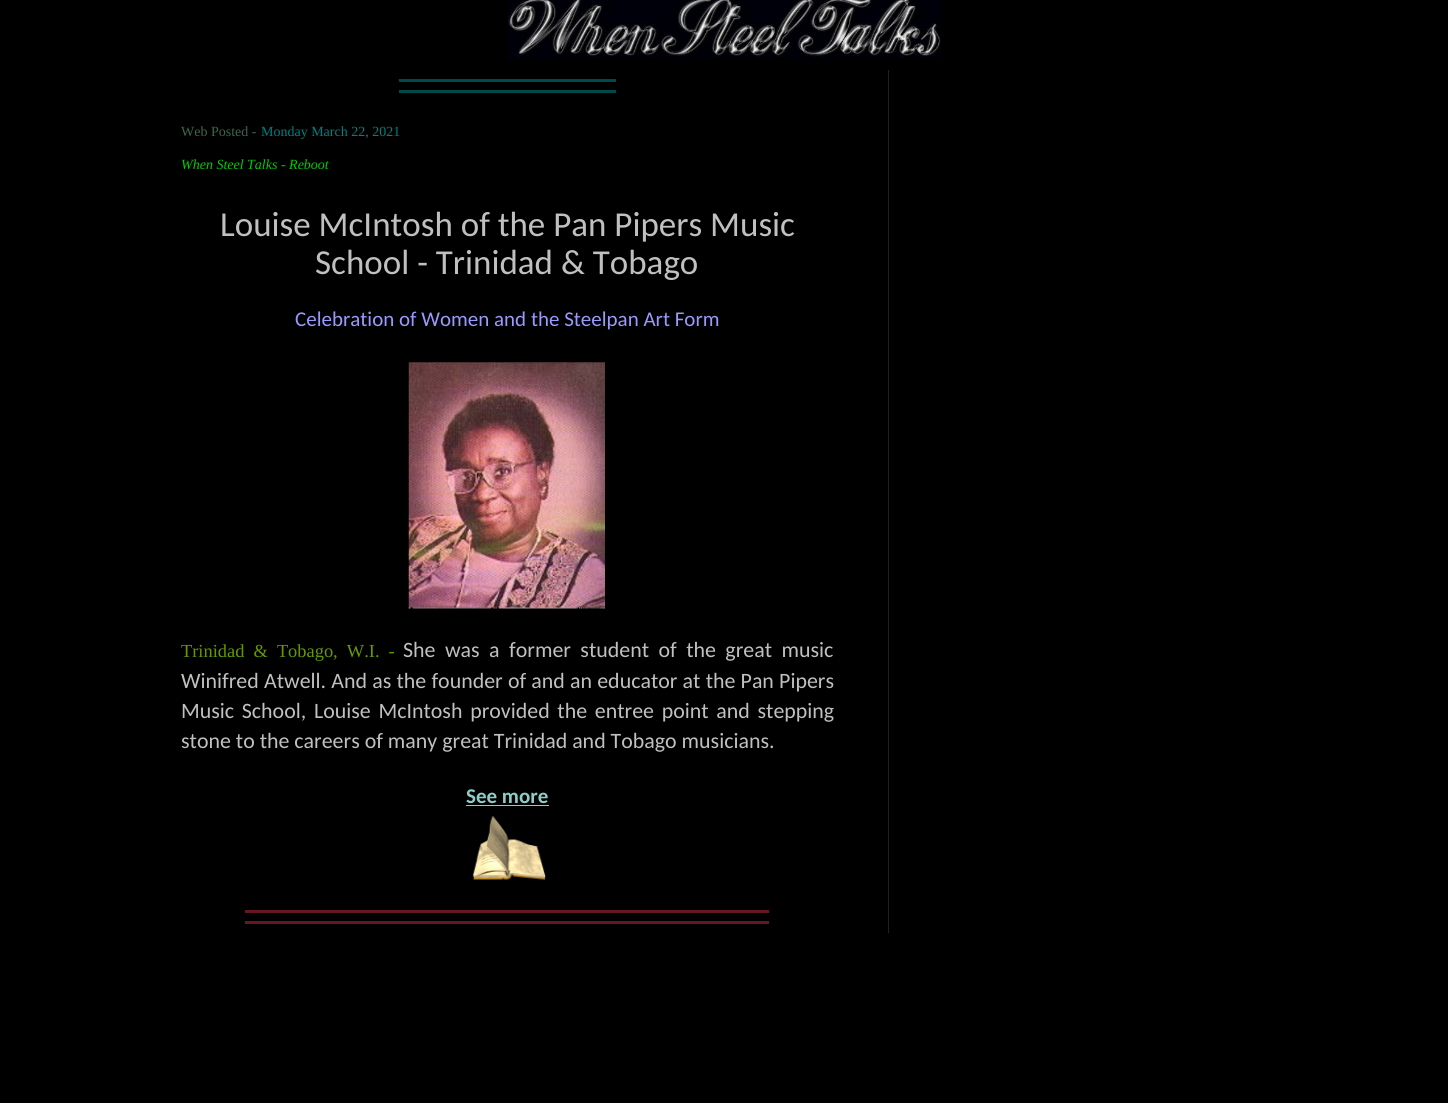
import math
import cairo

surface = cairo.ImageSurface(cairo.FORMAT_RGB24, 1448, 1103)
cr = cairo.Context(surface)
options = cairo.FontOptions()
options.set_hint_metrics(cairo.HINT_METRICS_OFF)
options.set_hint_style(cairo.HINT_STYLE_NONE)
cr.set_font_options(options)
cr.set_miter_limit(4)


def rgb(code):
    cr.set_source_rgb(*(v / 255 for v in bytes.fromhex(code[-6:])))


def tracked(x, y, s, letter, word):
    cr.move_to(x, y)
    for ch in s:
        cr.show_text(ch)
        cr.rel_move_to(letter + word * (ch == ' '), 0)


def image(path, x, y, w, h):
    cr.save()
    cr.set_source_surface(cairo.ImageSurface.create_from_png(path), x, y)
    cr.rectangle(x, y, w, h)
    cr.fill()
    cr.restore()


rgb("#000000")
cr.paint()
image("img/1.png", 507, 0, 434, 60)
for x, y, w, h, color in [
    (888, 70, 1, 863, "#211f1f"),
    (399, 79, 217, 3, "#004a4a"),
    (399, 90, 217, 3, "#004a4a"),
]:
    rgb(color)
    cr.rectangle(x, y, w, h)
    cr.fill()
image("img/2.png", 408, 362, 197, 247)
rgb("#8ecec9")
cr.rectangle(466, 805, 83, 1)
cr.fill()
image("img/3.png", 472, 816, 74, 64)
rgb("#671622")
cr.rectangle(245, 910, 524, 3)
cr.fill()
cr.rectangle(245, 921, 524, 3)
cr.fill()
cr.select_font_face("Liberation Serif")
cr.set_font_size(14)
rgb("#3e664e")
cr.move_to(181, 136)
cr.show_text("Web Posted -")
rgb("#008080")
cr.move_to(261, 136)
cr.show_text("Monday March 22, 2021")
cr.select_font_face("Liberation Serif", cairo.FONT_SLANT_ITALIC)
rgb("#00cc00")
cr.move_to(181, 169)
cr.show_text("When Steel Talks - Reboot")
cr.select_font_face("Carlito")
cr.set_font_size(35)
rgb("#c0c0c0")
cr.move_to(220, 236)
cr.show_text("Louise McIntosh of the Pan Pipers Music")
cr.move_to(315, 274)
cr.show_text("School - Trinidad & Tobago")
cr.set_font_size(21)
rgb("#9999ff")
cr.move_to(295, 326)
cr.show_text("Celebration of Women and the Steelpan Art Form")
cr.select_font_face("Liberation Serif")
cr.set_font_size(18.4)
rgb("#669900")
tracked(181, 657, "Trinidad & Tobago, W.I. -", 0, 4.5)
cr.select_font_face("Carlito")
cr.set_font_size(21.9)
rgb("#c0c0c0")
tracked(403, 657, "She was a former student of the great music", 0, 4.5)
tracked(181, 688, "Winifred Atwell. And as the founder of and an educator at the Pan Pipers", 0, 0.25)
tracked(181, 718, "Music School,", 0, 2.75)
tracked(314, 718, "Louise McIntosh provided the entree point and stepping", 0, 2.75)
cr.move_to(181, 748)
cr.show_text("stone to the careers of many great Trinidad and Tobago musicians.")
cr.select_font_face("Carlito", cairo.FONT_SLANT_NORMAL, cairo.FONT_WEIGHT_BOLD)
cr.set_font_size(21)
rgb("#8ecec9")
cr.move_to(466, 803)
cr.show_text("See more")
surface.write_to_png("page.png")
